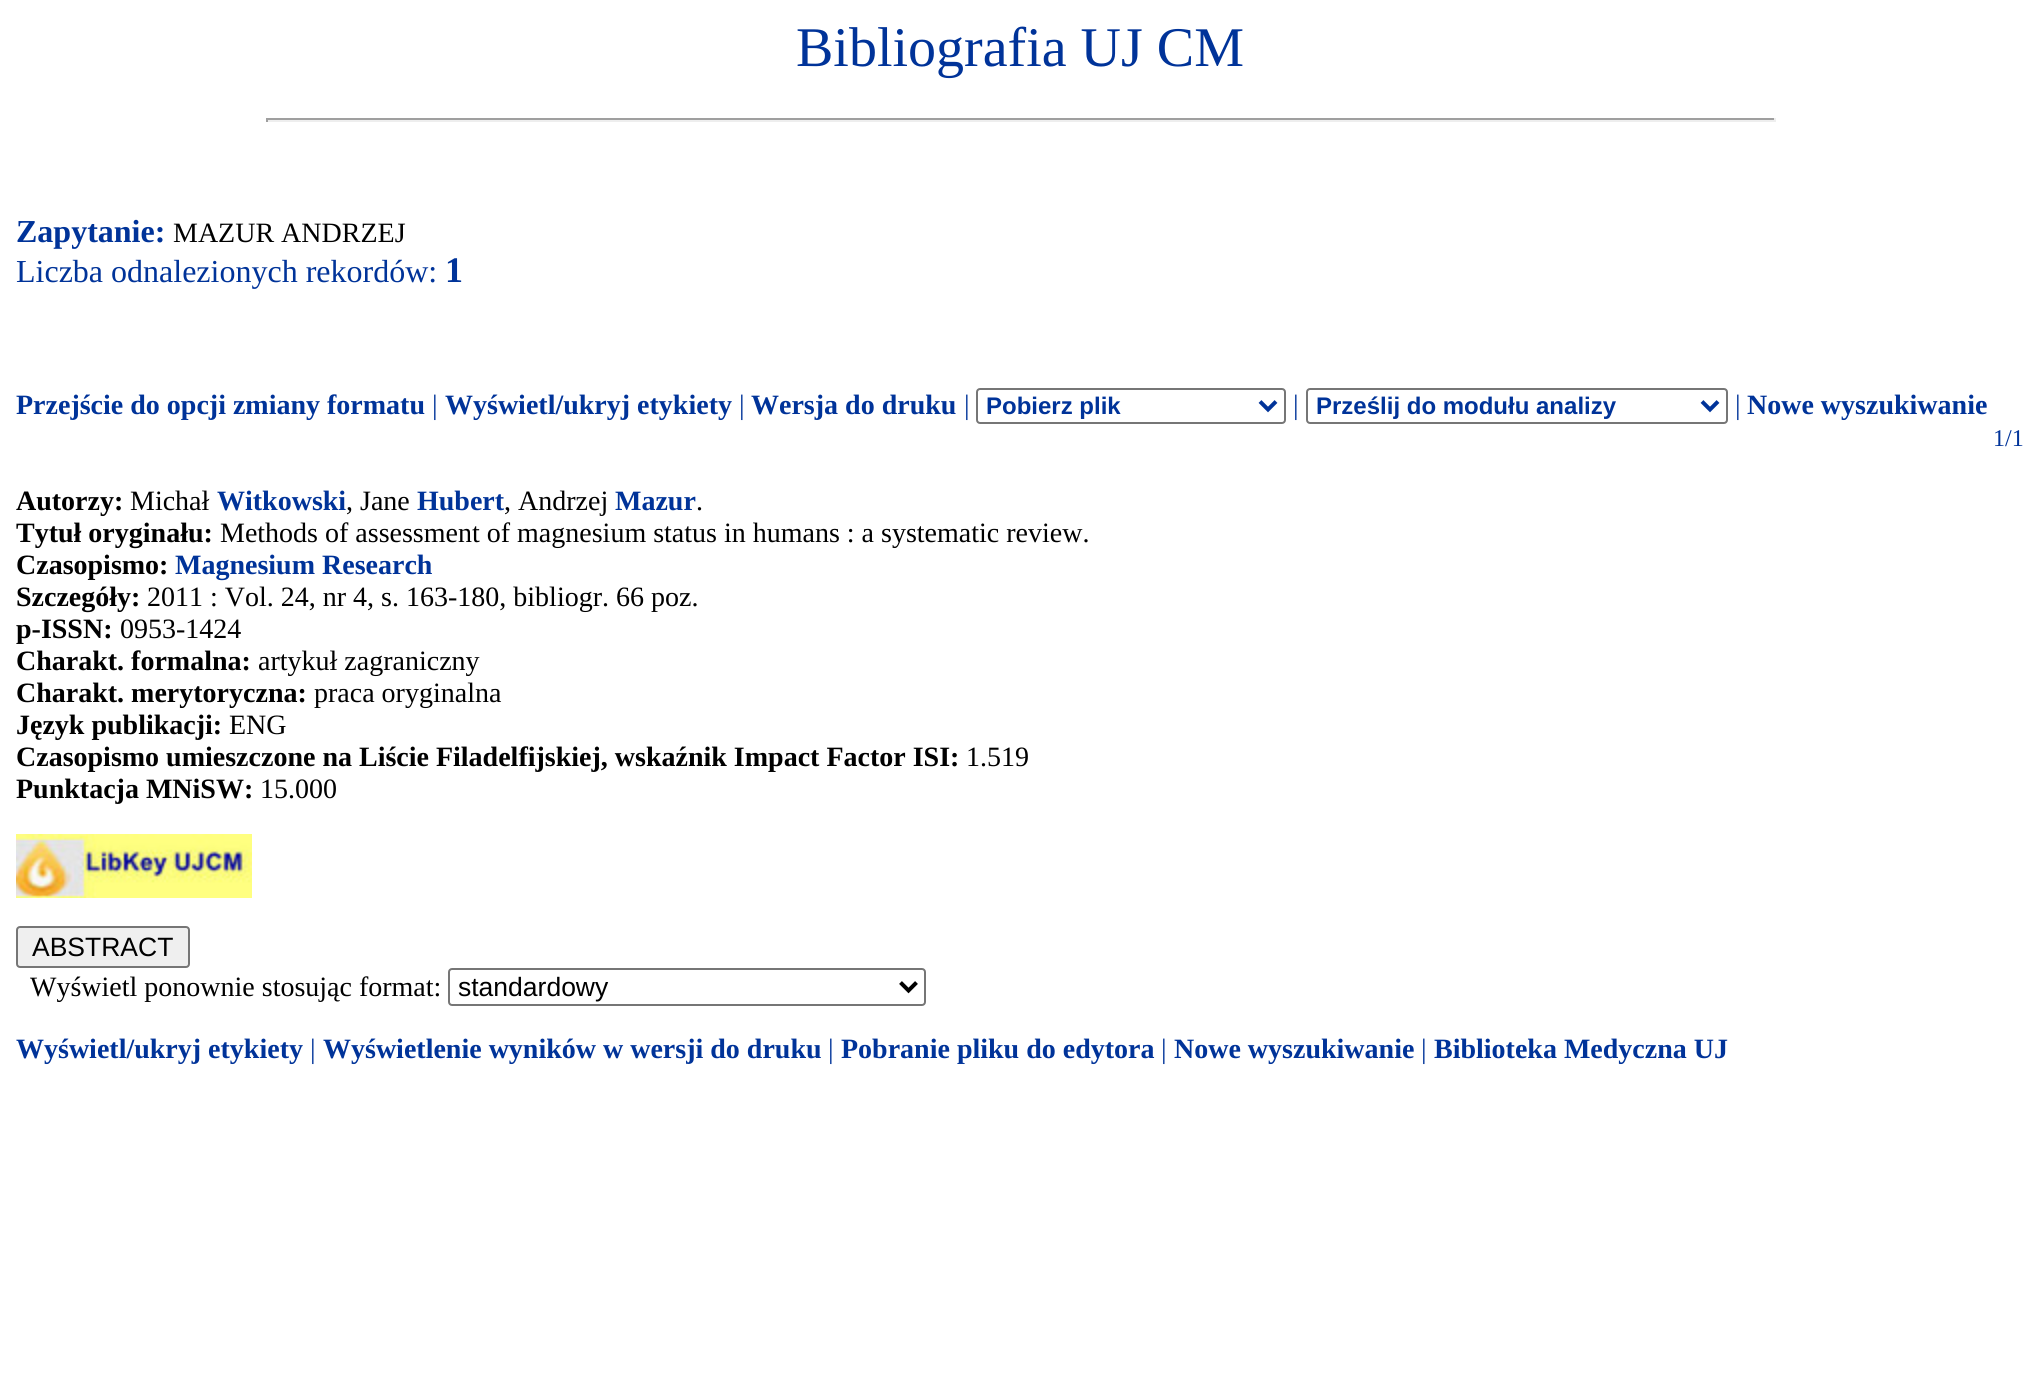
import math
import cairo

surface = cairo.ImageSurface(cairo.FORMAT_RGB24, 2039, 1384)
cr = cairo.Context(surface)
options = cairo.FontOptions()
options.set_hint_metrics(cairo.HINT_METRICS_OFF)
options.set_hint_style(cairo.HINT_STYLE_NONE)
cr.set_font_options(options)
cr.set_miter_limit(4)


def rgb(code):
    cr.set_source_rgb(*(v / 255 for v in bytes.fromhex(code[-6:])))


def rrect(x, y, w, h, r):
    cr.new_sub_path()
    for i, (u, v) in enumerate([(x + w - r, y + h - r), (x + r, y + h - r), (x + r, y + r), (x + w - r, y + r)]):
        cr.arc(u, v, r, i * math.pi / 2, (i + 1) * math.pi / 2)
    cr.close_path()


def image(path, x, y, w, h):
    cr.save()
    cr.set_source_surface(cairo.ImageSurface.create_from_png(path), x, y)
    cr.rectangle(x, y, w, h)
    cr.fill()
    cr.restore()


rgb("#ffffff")
cr.paint()
for x, y, w, h, color in [
    (266, 118, 1510, 2, "#9f9f9f"),
    (1774, 118, 2, 4, "#eeeeee"),
    (266, 120, 1510, 2, "#eeeeee"),
    (266, 118, 2, 4, "#9f9f9f"),
]:
    rgb(color)
    cr.rectangle(x, y, w, h)
    cr.fill()
rrect(977, 389, 308, 34, 3)
rgb("#767676")
cr.stroke()
cr.new_path()
cr.move_to(1260, 401.5)
cr.line_to(1268, 409.5)
cr.line_to(1276, 401.5)
rgb("#003399")
cr.set_line_width(4)
cr.stroke()
rrect(1307, 389, 420, 34, 3)
rgb("#767676")
cr.set_line_width(2)
cr.stroke()
cr.new_path()
cr.move_to(1702, 401.5)
cr.line_to(1710, 409.5)
cr.line_to(1718, 401.5)
rgb("#003399")
cr.set_line_width(4)
cr.stroke()
image("img/1.png", 16, 834, 236, 64)
rgb("#efefef")
rrect(17, 927, 172, 40, 3)
cr.fill_preserve()
rgb("#767676")
cr.set_line_width(2)
cr.stroke()
rrect(449, 969, 476, 36, 3)
cr.stroke()
cr.new_path()
cr.move_to(900.5, 982.5)
cr.line_to(908.5, 990.5)
cr.line_to(916.5, 982.5)
rgb("#000000")
cr.set_line_width(4)
cr.stroke()
cr.select_font_face("Liberation Serif")
cr.set_font_size(56)
rgb("#003399")
cr.move_to(796, 66)
cr.show_text("Bibliografia UJ CM")
cr.select_font_face("Liberation Serif", cairo.FONT_SLANT_NORMAL, cairo.FONT_WEIGHT_BOLD)
cr.set_font_size(32)
cr.move_to(16, 242)
cr.show_text("Zapytanie:")
cr.select_font_face("Liberation Serif")
cr.set_font_size(28)
rgb("#000000")
cr.move_to(173, 242)
cr.show_text("MAZUR ANDRZEJ")
cr.set_font_size(32)
rgb("#003399")
cr.move_to(16, 282)
cr.show_text("Liczba odnalezionych rekordów:")
cr.select_font_face("Liberation Serif", cairo.FONT_SLANT_NORMAL, cairo.FONT_WEIGHT_BOLD)
cr.set_font_size(36)
cr.move_to(445, 282)
cr.show_text("1")
cr.set_font_size(28)
cr.move_to(16, 414)
cr.show_text("Przejście do opcji zmiany formatu")
cr.select_font_face("Liberation Serif")
cr.move_to(432, 414)
cr.show_text("|")
cr.select_font_face("Liberation Serif", cairo.FONT_SLANT_NORMAL, cairo.FONT_WEIGHT_BOLD)
cr.move_to(445, 414)
cr.show_text("Wyświetl/ukryj etykiety")
cr.select_font_face("Liberation Serif")
cr.move_to(739, 414)
cr.show_text("|")
cr.select_font_face("Liberation Serif", cairo.FONT_SLANT_NORMAL, cairo.FONT_WEIGHT_BOLD)
cr.move_to(751, 414)
cr.show_text("Wersja do druku")
cr.select_font_face("Liberation Serif")
cr.move_to(964, 414)
cr.show_text("|")
cr.select_font_face("Liberation Sans", cairo.FONT_SLANT_NORMAL, cairo.FONT_WEIGHT_BOLD)
cr.set_font_size(24)
cr.move_to(986, 414)
cr.show_text("Pobierz plik")
cr.select_font_face("Liberation Serif")
cr.set_font_size(28)
cr.move_to(1293, 414)
cr.show_text("|")
cr.select_font_face("Liberation Sans", cairo.FONT_SLANT_NORMAL, cairo.FONT_WEIGHT_BOLD)
cr.set_font_size(24)
cr.move_to(1316, 414)
cr.show_text("Prześlij do modułu analizy")
cr.select_font_face("Liberation Serif")
cr.set_font_size(28)
cr.move_to(1735, 414)
cr.show_text("|")
cr.select_font_face("Liberation Serif", cairo.FONT_SLANT_NORMAL, cairo.FONT_WEIGHT_BOLD)
cr.move_to(1747, 414)
cr.show_text("Nowe wyszukiwanie")
cr.select_font_face("Liberation Serif")
cr.set_font_size(24)
cr.move_to(1993, 446)
cr.show_text("1/1")
cr.select_font_face("Liberation Serif", cairo.FONT_SLANT_NORMAL, cairo.FONT_WEIGHT_BOLD)
cr.set_font_size(28)
rgb("#000000")
cr.move_to(16, 510)
cr.show_text("Autorzy:")
cr.select_font_face("Liberation Serif")
cr.move_to(130, 510)
cr.show_text("Michał")
cr.select_font_face("Liberation Serif", cairo.FONT_SLANT_NORMAL, cairo.FONT_WEIGHT_BOLD)
rgb("#003399")
cr.move_to(217, 510)
cr.show_text("Witkowski")
cr.select_font_face("Liberation Serif")
rgb("#000000")
cr.move_to(346, 510)
cr.show_text(", Jane")
cr.select_font_face("Liberation Serif", cairo.FONT_SLANT_NORMAL, cairo.FONT_WEIGHT_BOLD)
rgb("#003399")
cr.move_to(417, 510)
cr.show_text("Hubert")
cr.select_font_face("Liberation Serif")
rgb("#000000")
cr.move_to(504, 510)
cr.show_text(", Andrzej")
cr.select_font_face("Liberation Serif", cairo.FONT_SLANT_NORMAL, cairo.FONT_WEIGHT_BOLD)
rgb("#003399")
cr.move_to(615, 510)
cr.show_text("Mazur")
cr.select_font_face("Liberation Serif")
rgb("#000000")
cr.move_to(696, 510)
cr.show_text(".")
cr.select_font_face("Liberation Serif", cairo.FONT_SLANT_NORMAL, cairo.FONT_WEIGHT_BOLD)
cr.move_to(16, 542)
cr.show_text("Tytuł oryginału:")
cr.select_font_face("Liberation Serif")
cr.move_to(220, 542)
cr.show_text("Methods of assessment of magnesium status in humans : a systematic review.")
cr.select_font_face("Liberation Serif", cairo.FONT_SLANT_NORMAL, cairo.FONT_WEIGHT_BOLD)
cr.move_to(16, 574)
cr.show_text("Czasopismo:")
rgb("#003399")
cr.move_to(175, 574)
cr.show_text("Magnesium Research")
rgb("#000000")
cr.move_to(16, 606)
cr.show_text("Szczegóły:")
cr.select_font_face("Liberation Serif")
cr.move_to(147, 606)
cr.show_text("2011 : Vol. 24, nr 4, s. 163-180, bibliogr. 66 poz.")
cr.select_font_face("Liberation Serif", cairo.FONT_SLANT_NORMAL, cairo.FONT_WEIGHT_BOLD)
cr.move_to(16, 638)
cr.show_text("p-ISSN:")
cr.select_font_face("Liberation Serif")
cr.move_to(120, 638)
cr.show_text("0953-1424")
cr.select_font_face("Liberation Serif", cairo.FONT_SLANT_NORMAL, cairo.FONT_WEIGHT_BOLD)
cr.move_to(16, 670)
cr.show_text("Charakt. formalna:")
cr.select_font_face("Liberation Serif")
cr.move_to(258, 670)
cr.show_text("artykuł zagraniczny")
cr.select_font_face("Liberation Serif", cairo.FONT_SLANT_NORMAL, cairo.FONT_WEIGHT_BOLD)
cr.move_to(16, 702)
cr.show_text("Charakt. merytoryczna:")
cr.select_font_face("Liberation Serif")
cr.move_to(314, 702)
cr.show_text("praca oryginalna")
cr.select_font_face("Liberation Serif", cairo.FONT_SLANT_NORMAL, cairo.FONT_WEIGHT_BOLD)
cr.move_to(16, 734)
cr.show_text("Język publikacji:")
cr.select_font_face("Liberation Serif")
cr.move_to(229, 734)
cr.show_text("ENG")
cr.select_font_face("Liberation Serif", cairo.FONT_SLANT_NORMAL, cairo.FONT_WEIGHT_BOLD)
cr.move_to(16, 766)
cr.show_text("Czasopismo umieszczone na Liście Filadelfijskiej, wskaźnik Impact Factor ISI:")
cr.select_font_face("Liberation Serif")
cr.move_to(966, 766)
cr.show_text("1.519")
cr.select_font_face("Liberation Serif", cairo.FONT_SLANT_NORMAL, cairo.FONT_WEIGHT_BOLD)
cr.move_to(16, 798)
cr.show_text("Punktacja MNiSW:")
cr.select_font_face("Liberation Serif")
cr.move_to(260, 798)
cr.show_text("15.000")
cr.select_font_face("Liberation Sans")
cr.set_font_size(26.5)
cr.move_to(32, 956)
cr.show_text("ABSTRACT")
cr.select_font_face("Liberation Serif")
cr.set_font_size(28)
cr.move_to(30, 996)
cr.show_text("Wyświetl ponownie stosując format:")
cr.select_font_face("Liberation Sans")
cr.set_font_size(26.5)
cr.move_to(458, 996)
cr.show_text("standardowy")
cr.select_font_face("Liberation Serif", cairo.FONT_SLANT_NORMAL, cairo.FONT_WEIGHT_BOLD)
cr.set_font_size(28)
rgb("#003399")
cr.move_to(16, 1058)
cr.show_text("Wyświetl/ukryj etykiety")
cr.select_font_face("Liberation Serif")
cr.move_to(310, 1058)
cr.show_text("|")
cr.select_font_face("Liberation Serif", cairo.FONT_SLANT_NORMAL, cairo.FONT_WEIGHT_BOLD)
cr.move_to(323, 1058)
cr.show_text("Wyświetlenie wyników w wersji do druku")
cr.select_font_face("Liberation Serif")
cr.move_to(828, 1058)
cr.show_text("|")
cr.select_font_face("Liberation Serif", cairo.FONT_SLANT_NORMAL, cairo.FONT_WEIGHT_BOLD)
cr.move_to(841, 1058)
cr.show_text("Pobranie pliku do edytora")
cr.select_font_face("Liberation Serif")
cr.move_to(1161, 1058)
cr.show_text("|")
cr.select_font_face("Liberation Serif", cairo.FONT_SLANT_NORMAL, cairo.FONT_WEIGHT_BOLD)
cr.move_to(1174, 1058)
cr.show_text("Nowe wyszukiwanie")
cr.select_font_face("Liberation Serif")
cr.move_to(1421, 1058)
cr.show_text("|")
cr.select_font_face("Liberation Serif", cairo.FONT_SLANT_NORMAL, cairo.FONT_WEIGHT_BOLD)
cr.move_to(1434, 1058)
cr.show_text("Biblioteka Medyczna UJ")
surface.write_to_png("page.png")
